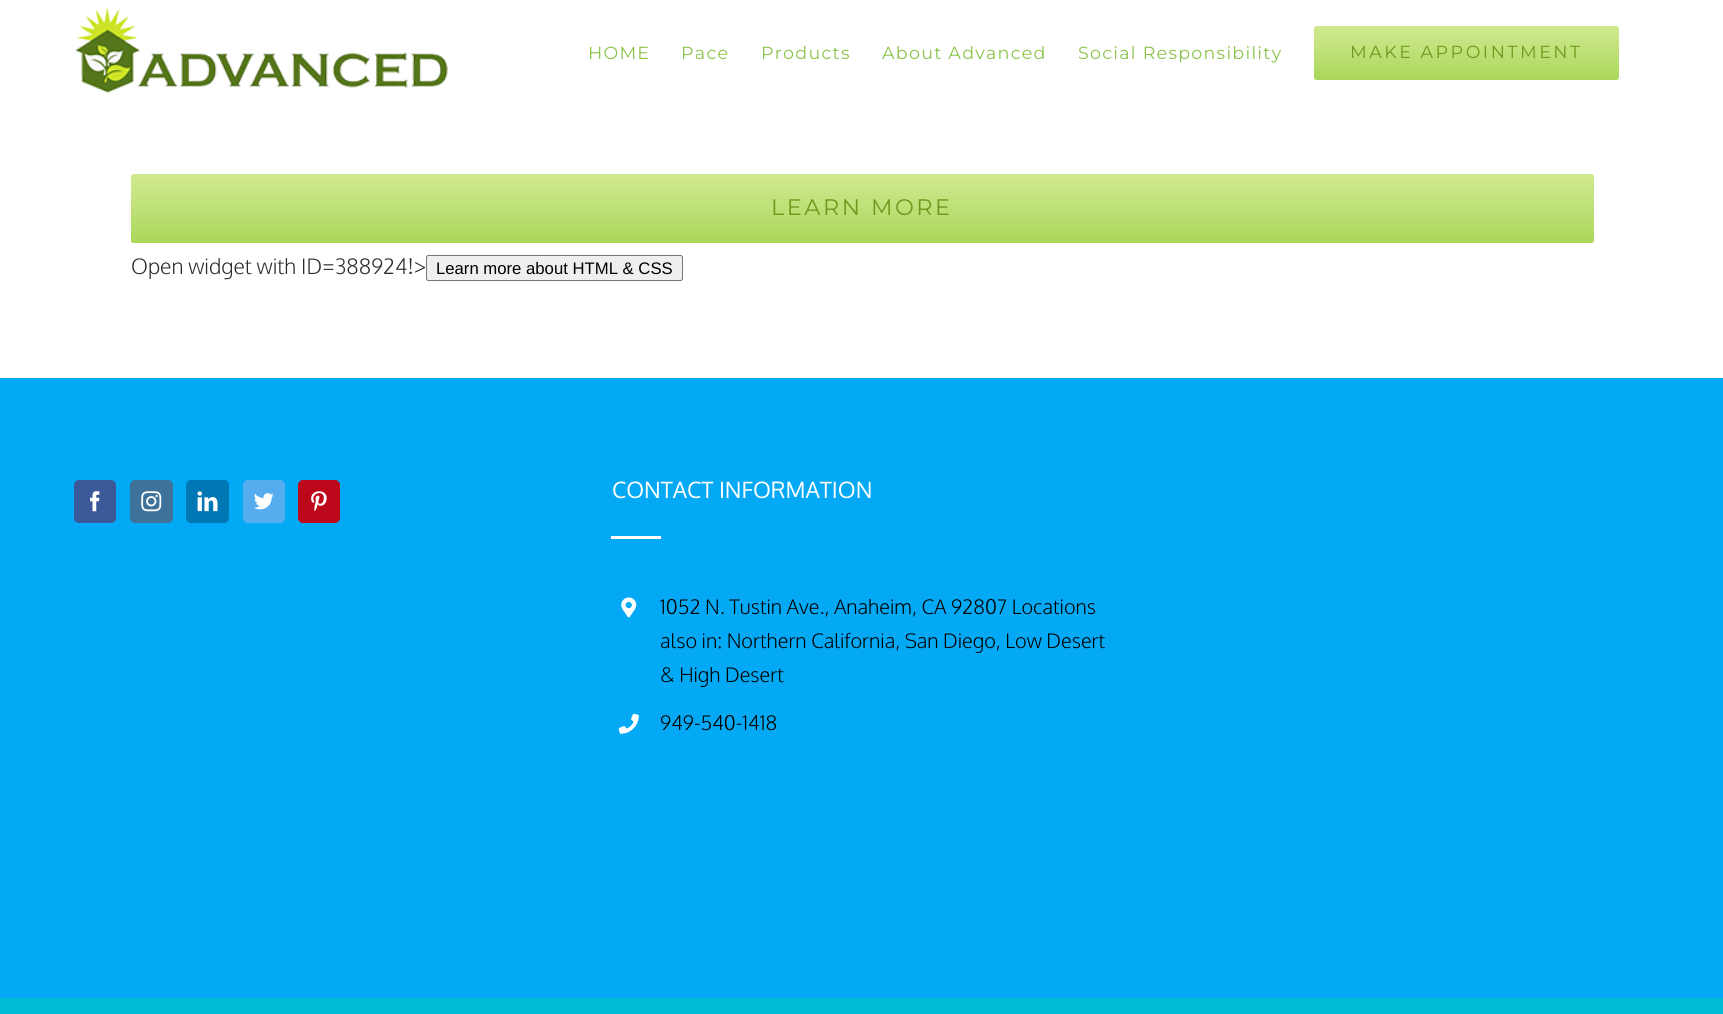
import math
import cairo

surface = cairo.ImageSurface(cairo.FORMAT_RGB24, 1723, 1014)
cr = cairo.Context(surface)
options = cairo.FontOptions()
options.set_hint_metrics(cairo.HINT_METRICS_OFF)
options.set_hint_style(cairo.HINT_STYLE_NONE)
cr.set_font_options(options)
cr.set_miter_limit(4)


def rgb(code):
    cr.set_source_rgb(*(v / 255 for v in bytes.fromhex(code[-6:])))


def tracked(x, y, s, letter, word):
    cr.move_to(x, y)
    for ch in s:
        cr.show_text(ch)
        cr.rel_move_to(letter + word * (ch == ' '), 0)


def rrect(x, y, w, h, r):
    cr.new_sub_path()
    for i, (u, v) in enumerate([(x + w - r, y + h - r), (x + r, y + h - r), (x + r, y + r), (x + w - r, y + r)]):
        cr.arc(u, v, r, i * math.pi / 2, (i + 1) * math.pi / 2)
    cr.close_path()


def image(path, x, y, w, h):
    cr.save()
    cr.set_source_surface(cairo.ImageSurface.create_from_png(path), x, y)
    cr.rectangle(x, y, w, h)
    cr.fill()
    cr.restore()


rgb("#ffffff")
cr.paint()
image("img/1.png", 75, 7, 373, 86)
gradient = cairo.LinearGradient(1466, 26, 1466, 80)
gradient.add_color_stop_rgba(0, 0.82, 0.914, 0.565, 1)
gradient.add_color_stop_rgba(1, 0.667, 0.843, 0.357, 1)
cr.set_source(gradient)
rrect(1314, 26, 305, 54, 2.5)
cr.fill()
gradient = cairo.LinearGradient(863, 174, 863, 243)
gradient.add_color_stop_rgba(0, 0.82, 0.914, 0.565, 1)
gradient.add_color_stop_rgba(1, 0.667, 0.843, 0.357, 1)
cr.set_source(gradient)
rrect(131, 174, 1463, 69, 2.5)
cr.fill()
rgb("#efefef")
rrect(426.5, 255.5, 256, 25, 2)
cr.fill_preserve()
rgb("#767676")
cr.set_line_width(1)
cr.stroke()
rgb("#03a9f4")
cr.rectangle(0, 378, 1723, 620)
cr.fill()
rgb("#3b5998")
rrect(74.5, 480.5, 41, 42, 4.5)
cr.fill_preserve()
cr.stroke()
image("img/2.png", 90, 491, 10, 21)
rgb("#3f729b")
rrect(130.5, 480.5, 42, 42, 4.5)
cr.fill_preserve()
cr.stroke()
image("img/3.png", 141, 491, 21, 21)
rgb("#0077b5")
rrect(186.5, 480.5, 42, 42, 4.5)
cr.fill_preserve()
cr.stroke()
image("img/4.png", 197, 491, 21, 21)
rgb("#55acee")
rrect(243.5, 480.5, 41, 42, 4.5)
cr.fill_preserve()
cr.stroke()
image("img/5.png", 254, 493, 20, 17)
rgb("#bd081c")
rrect(298.5, 480.5, 41, 42, 4.5)
cr.fill_preserve()
cr.stroke()
image("img/6.png", 311, 491, 16, 21)
rgb("#ffffff")
cr.rectangle(611, 536, 50, 3)
cr.fill()
image("img/7.png", 621, 597, 16, 21)
image("img/8.png", 618, 713, 21, 21)
rgb("#00bcd4")
cr.rectangle(0, 998, 1723, 16)
cr.fill()
cr.select_font_face("Montserrat Thin")
cr.set_font_size(17.5)
rgb("#8bc34a")
for x, y, s in [
    (588, 59, "HOME"),
    (681, 59, "Pace"),
    (761, 59, "Products"),
    (882, 59, "About Advanced"),
    (1078, 59, "Social Responsibility"),
]:
    tracked(x, y, s, 1.25, 0)
rgb("#6e9a1f")
tracked(1350, 58, "MAKE APPOINTMENT", 2.5, 0)
cr.set_font_size(22.5)
tracked(771, 215, "LEARN MORE", 2.5, 0)
cr.select_font_face("Oxygen Light")
cr.set_font_size(21.25)
rgb("#2b2b2b")
cr.move_to(131, 274)
cr.show_text("Open widget with ID=388924!>")
cr.select_font_face("Liberation Sans")
cr.set_font_size(16.7)
rgb("#000000")
cr.move_to(436, 274)
cr.show_text("Learn more about HTML & CSS")
cr.select_font_face("Oxygen")
cr.set_font_size(22.5)
rgb("#ffffff")
cr.move_to(612, 498)
cr.show_text("CONTACT INFORMATION")
cr.select_font_face("Oxygen Light")
cr.set_font_size(20)
rgb("#000000")
for x, y, s in [
    (660, 614, "1052 N. Tustin Ave., Anaheim, CA 92807 Locations"),
    (660, 648, "also in: Northern California, San Diego, Low Desert"),
    (660, 682, "& High Desert"),
    (660, 730, "949-540-1418"),
]:
    cr.move_to(x, y)
    cr.show_text(s)
surface.write_to_png("page.png")
